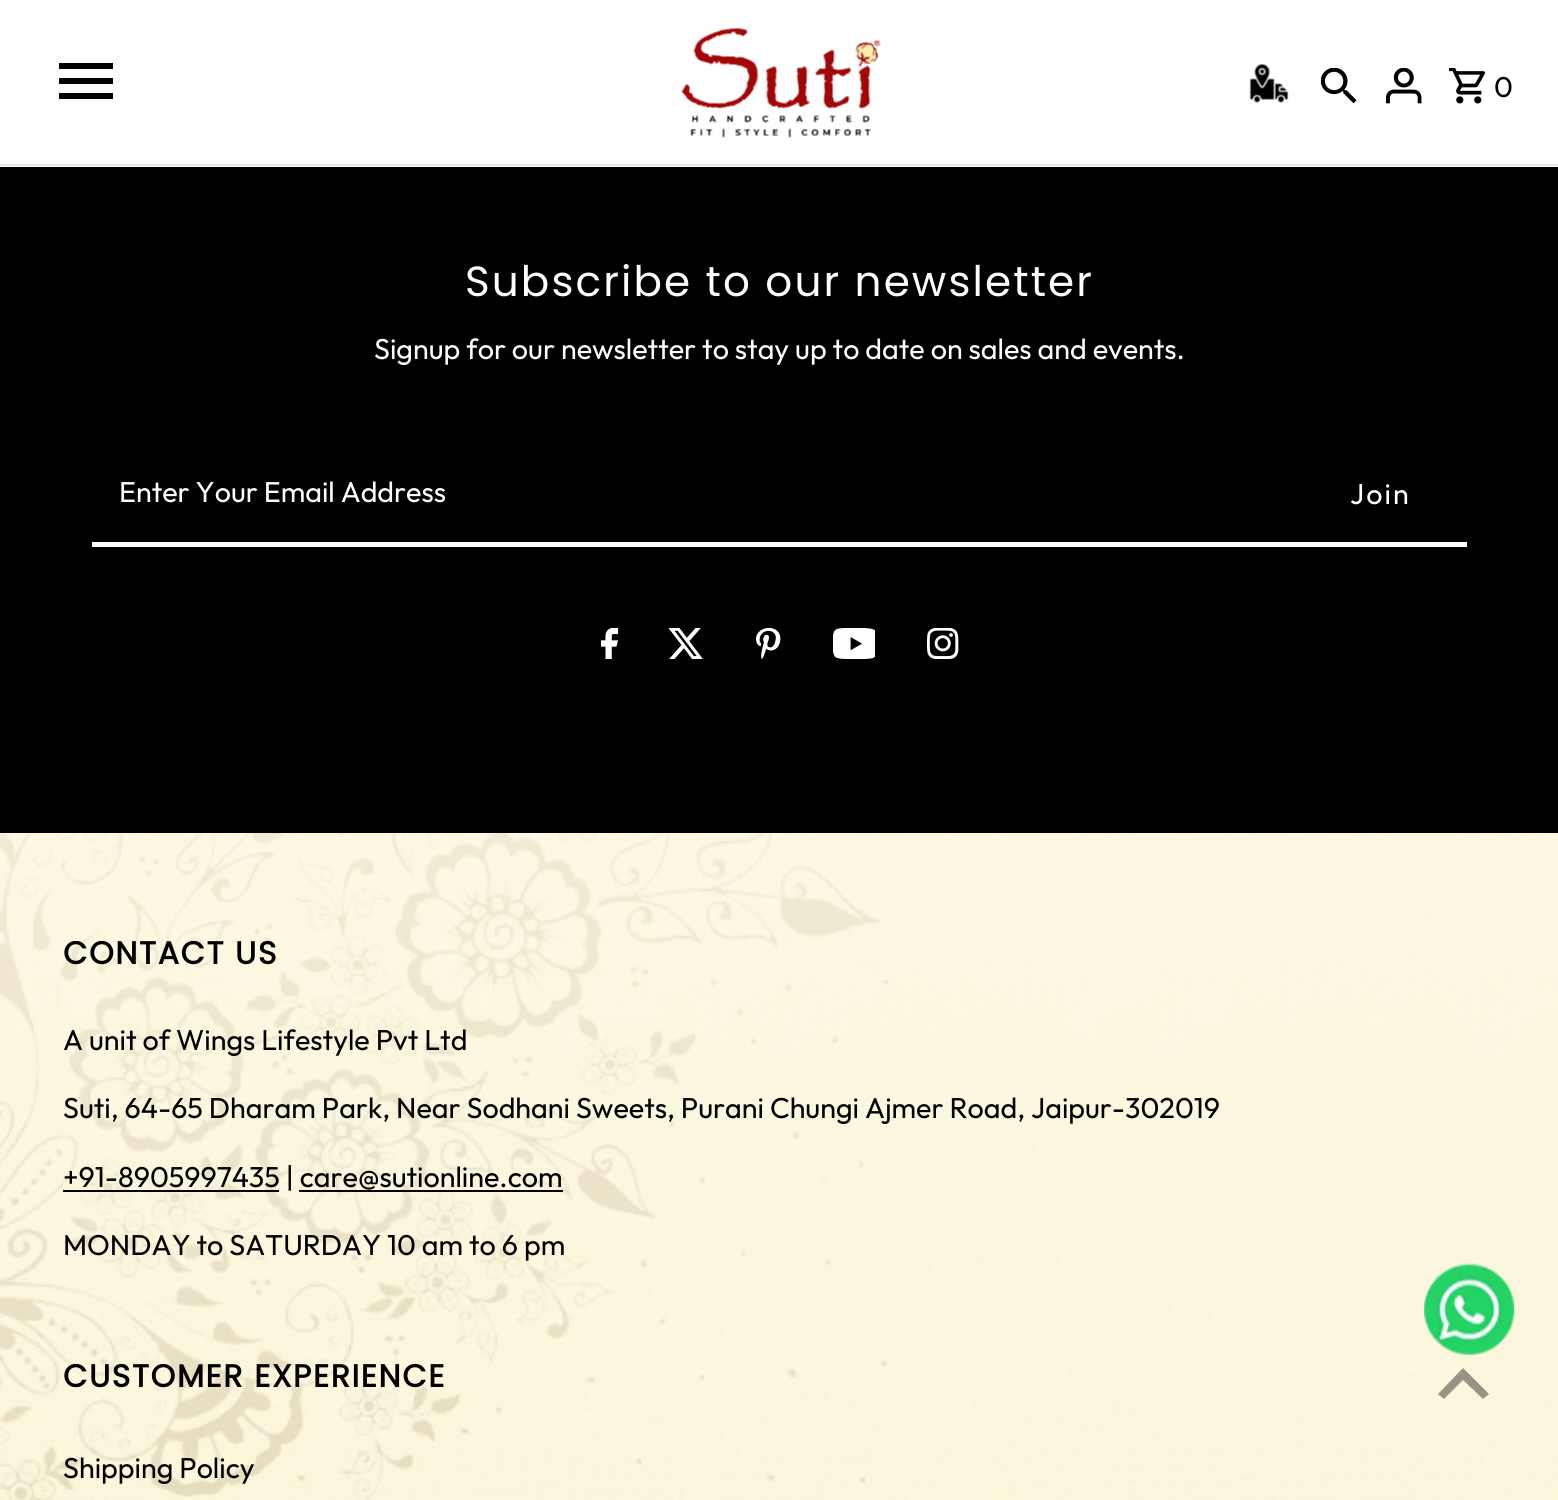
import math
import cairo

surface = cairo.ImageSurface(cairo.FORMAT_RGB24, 1558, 1500)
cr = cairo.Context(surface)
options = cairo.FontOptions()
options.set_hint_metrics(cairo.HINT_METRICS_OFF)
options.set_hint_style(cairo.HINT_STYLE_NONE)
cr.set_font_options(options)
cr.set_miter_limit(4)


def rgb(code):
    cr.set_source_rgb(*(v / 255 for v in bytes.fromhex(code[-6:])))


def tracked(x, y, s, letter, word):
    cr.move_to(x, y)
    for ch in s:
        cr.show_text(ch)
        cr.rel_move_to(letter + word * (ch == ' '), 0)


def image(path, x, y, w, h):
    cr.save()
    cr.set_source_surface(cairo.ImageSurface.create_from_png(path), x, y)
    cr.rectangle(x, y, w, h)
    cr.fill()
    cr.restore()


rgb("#ffffff")
cr.paint()
for x, y, w, h, color in [
    (0, 164, 1558, 2, "#e8e7e7"),
    (59, 93, 54, 6, "#000000"),
    (59, 78, 54, 6, "#000000"),
    (59, 63, 54, 6, "#000000"),
]:
    rgb(color)
    cr.rectangle(x, y, w, h)
    cr.fill()
image("img/1.png", 681, 28, 200, 110)
image("img/2.png", 1249, 64, 40, 39)
image("img/3.png", 1321, 68, 36, 36)
image("img/4.png", 1386, 68, 36, 36)
image("img/5.png", 1449, 68, 36, 36)
cr.rectangle(0, 167, 1558, 666)
cr.fill()
rgb("#ffffff")
cr.rectangle(92, 542, 1375, 5)
cr.fill()
image("img/6.png", 601, 628, 18, 31)
image("img/7.png", 668, 628, 35, 31)
image("img/8.png", 756, 628, 25, 31)
image("img/9.png", 833, 628, 42, 31)
image("img/10.png", 927, 628, 32, 31)
image("img/11.png", 0, 833, 1558, 667)
rgb("#000000")
cr.rectangle(63, 1190, 216, 2)
cr.fill()
cr.rectangle(299, 1190, 264, 2)
cr.fill()
cr.set_source_rgba(0, 0, 0, 0.4)
cr.new_path()
cr.move_to(1463, 1368)
cr.line_to(1438, 1394)
cr.line_to(1444, 1399)
cr.line_to(1463, 1380)
cr.line_to(1483, 1399)
cr.line_to(1489, 1394)
cr.close_path()
cr.fill()
image("img/12.png", 1424, 1263, 91, 92)
cr.select_font_face("Outfit")
cr.set_font_size(28.7)
rgb("#000000")
tracked(1494, 97, "0", 2, 0)
cr.select_font_face("Poppins")
cr.set_font_size(42.1)
rgb("#ffffff")
tracked(465, 296, "Subscribe to our newsletter", 2.1, 0)
cr.select_font_face("Outfit")
cr.set_font_size(28.7)
cr.move_to(374, 359)
cr.show_text("Signup for our newsletter to stay up to date on sales and events.")
cr.move_to(119, 502)
cr.show_text("Enter Your Email Address")
tracked(1350, 504, "Join", 2, 0)
cr.select_font_face("Poppins", cairo.FONT_SLANT_NORMAL, cairo.FONT_WEIGHT_BOLD)
cr.set_font_size(31.5)
rgb("#000000")
tracked(63, 964, "CONTACT US", 1.6, 0)
cr.select_font_face("Outfit")
cr.set_font_size(28.7)
for x, y, s in [
    (63, 1050, "A unit of Wings Lifestyle Pvt Ltd"),
    (63, 1118, "Suti, 64-65 Dharam Park, Near Sodhani Sweets, Purani Chungi Ajmer Road, Jaipur-302019"),
    (63, 1187, "+91-8905997435 | care@sutionline.com"),
    (63, 1255, "MONDAY to SATURDAY 10 am to 6 pm"),
]:
    cr.move_to(x, y)
    cr.show_text(s)
cr.select_font_face("Poppins", cairo.FONT_SLANT_NORMAL, cairo.FONT_WEIGHT_BOLD)
cr.set_font_size(31.5)
tracked(63, 1387, "CUSTOMER EXPERIENCE", 1.6, 0)
cr.select_font_face("Outfit")
cr.set_font_size(28.7)
cr.move_to(63, 1478)
cr.show_text("Shipping Policy")
surface.write_to_png("page.png")
